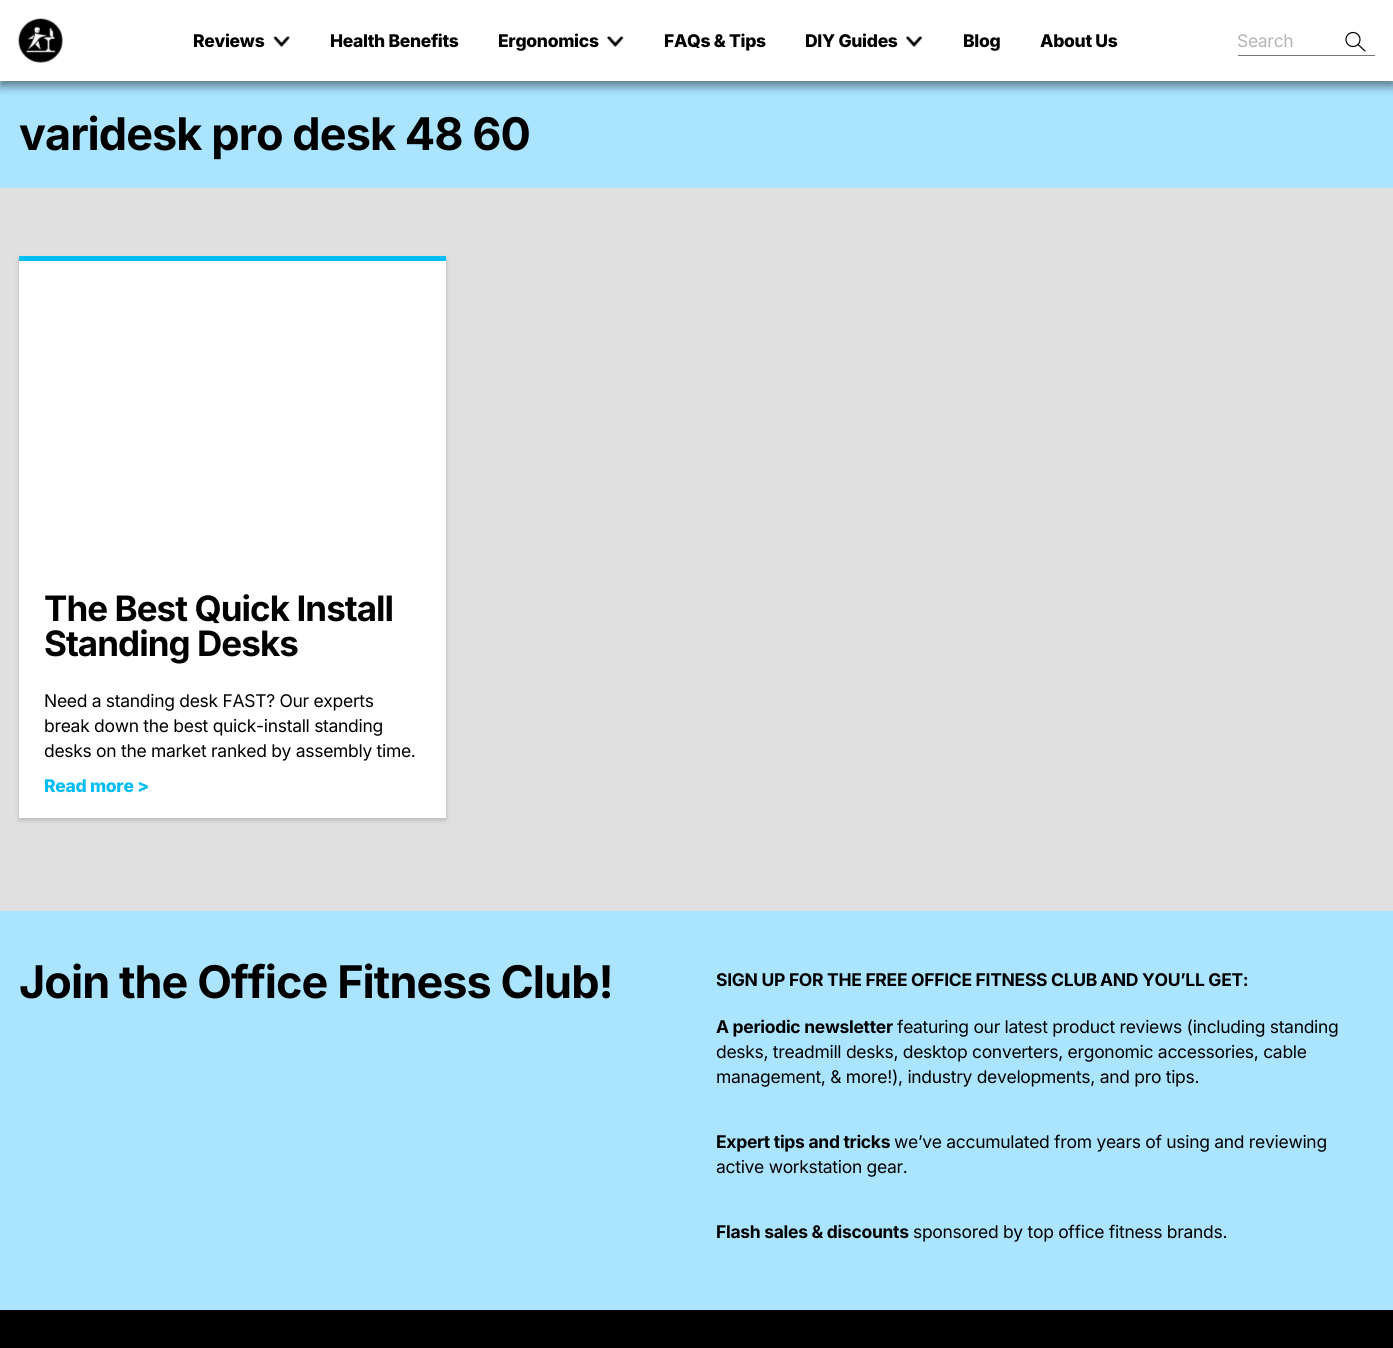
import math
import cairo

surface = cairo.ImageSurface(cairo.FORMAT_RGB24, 1393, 1348)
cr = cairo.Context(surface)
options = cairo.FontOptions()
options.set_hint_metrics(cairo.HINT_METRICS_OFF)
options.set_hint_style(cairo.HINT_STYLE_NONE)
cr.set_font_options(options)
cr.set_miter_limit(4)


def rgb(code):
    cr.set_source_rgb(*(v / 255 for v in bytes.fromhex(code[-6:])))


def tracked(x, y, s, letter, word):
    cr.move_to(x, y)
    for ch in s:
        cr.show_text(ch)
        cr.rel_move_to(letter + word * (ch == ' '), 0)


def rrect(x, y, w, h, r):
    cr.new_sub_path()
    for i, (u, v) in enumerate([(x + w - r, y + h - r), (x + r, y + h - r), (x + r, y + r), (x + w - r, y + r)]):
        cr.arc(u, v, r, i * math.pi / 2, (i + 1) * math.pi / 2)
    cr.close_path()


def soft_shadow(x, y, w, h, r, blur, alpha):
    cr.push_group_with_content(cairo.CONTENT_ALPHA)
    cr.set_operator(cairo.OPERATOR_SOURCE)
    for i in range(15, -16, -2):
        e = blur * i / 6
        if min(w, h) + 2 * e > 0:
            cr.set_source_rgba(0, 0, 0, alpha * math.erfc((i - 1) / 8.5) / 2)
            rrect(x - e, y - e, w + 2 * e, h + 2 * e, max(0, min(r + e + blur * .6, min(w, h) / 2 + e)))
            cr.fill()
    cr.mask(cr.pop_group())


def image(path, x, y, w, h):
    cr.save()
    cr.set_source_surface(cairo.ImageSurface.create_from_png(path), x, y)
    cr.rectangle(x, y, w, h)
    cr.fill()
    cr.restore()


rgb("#e0e0e0")
cr.paint()
rgb("#aae4ff")
cr.rectangle(0, 81, 1393, 107)
cr.fill()
rgb("#000000")
soft_shadow(0, 5, 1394, 81, 0, 5, 0.48)
rgb("#ffffff")
cr.rectangle(0, 0, 1393, 81)
cr.fill()
image("img/1.png", 18, 18, 45, 45)
image("img/2.png", 273, 36, 17, 11)
image("img/3.png", 607, 36, 17, 11)
image("img/4.png", 906, 36, 17, 11)
rgb("#747676")
cr.rectangle(1238, 55, 137, 1)
cr.fill()
cr.arc(1353, 39.5, 7, 0, 2 * math.pi)
rgb("#000000")
cr.set_line_width(1.2)
cr.stroke()
cr.new_path()
cr.move_to(1358, 44.5)
cr.line_to(1365, 51)
cr.set_line_cap(cairo.LINE_CAP_ROUND)
cr.stroke()
rgb("#000000")
soft_shadow(19, 259, 427, 561, 0, 2.5, 0.19)
for x, y, w, h, color in [
    (19, 261, 427, 557, "#ffffff"),
    (19, 256, 427, 5, "#02bdf4"),
    (0, 911, 1393, 399, "#aae4ff"),
    (0, 1310, 1393, 38, "#000000"),
]:
    rgb(color)
    cr.rectangle(x, y, w, h)
    cr.fill()
cr.select_font_face("Inter ExtraBold")
cr.set_font_size(17.5)
for x, y, s in [
    (193, 47, "Reviews"),
    (330, 47, "Health Benefits"),
    (498, 47, "Ergonomics"),
    (664, 47, "FAQs & Tips"),
    (805, 47, "DIY Guides"),
    (963, 47, "Blog"),
    (1040, 47, "About Us"),
]:
    tracked(x, y, s, -0.3, 0)
cr.select_font_face("Inter")
rgb("#b4b5b5")
tracked(1237, 47, "Search", -0.3, 0)
cr.select_font_face("Inter", cairo.FONT_SLANT_NORMAL, cairo.FONT_WEIGHT_BOLD)
cr.set_font_size(45)
rgb("#000000")
tracked(19, 150, "varidesk pro desk 48 60", -0.95, 0)
cr.set_font_size(35)
tracked(44, 621, "The Best Quick Install", -0.95, 0)
tracked(44, 656, "Standing Desks", -0.95, 0)
cr.select_font_face("Inter")
cr.set_font_size(17.5)
for x, y, s in [
    (44, 707, "Need a standing desk FAST? Our experts"),
    (44, 732, "break down the best quick-install standing"),
    (44, 757, "desks on the market ranked by assembly time."),
]:
    tracked(x, y, s, -0.3, 0)
cr.select_font_face("Inter ExtraBold")
rgb("#02bdf4")
tracked(44, 792, "Read more >", -0.3, 0)
cr.select_font_face("Inter", cairo.FONT_SLANT_NORMAL, cairo.FONT_WEIGHT_BOLD)
cr.set_font_size(45)
rgb("#000000")
tracked(19, 998, "Join the Office Fitness Club!", -0.95, 0)
cr.set_font_size(17.5)
for x, y, s in [
    (716, 986, "SIGN UP FOR THE FREE OFFICE FITNESS CLUB"),
    (1100, 986, "AND YOU’LL GET:"),
    (716, 1033, "A periodic newsletter"),
]:
    tracked(x, y, s, -0.3, 0)
cr.select_font_face("Inter")
for x, y, s in [
    (897, 1033, "featuring our latest product reviews (including standing"),
    (716, 1058, "desks, treadmill desks, desktop converters, ergonomic accessories, cable"),
    (716, 1083, "management, & more!), industry developments, and pro tips."),
]:
    tracked(x, y, s, -0.3, 0)
cr.select_font_face("Inter", cairo.FONT_SLANT_NORMAL, cairo.FONT_WEIGHT_BOLD)
tracked(716, 1148, "Expert tips and tricks", -0.3, 0)
cr.select_font_face("Inter")
tracked(894, 1148, "we’ve accumulated from years of using and reviewing", -0.3, 0)
tracked(716, 1173, "active workstation gear.", -0.3, 0)
cr.select_font_face("Inter", cairo.FONT_SLANT_NORMAL, cairo.FONT_WEIGHT_BOLD)
tracked(716, 1238, "Flash sales & discounts", -0.3, 0)
cr.select_font_face("Inter")
tracked(913, 1238, "sponsored by top office fitness brands.", -0.3, 0)
surface.write_to_png("page.png")
